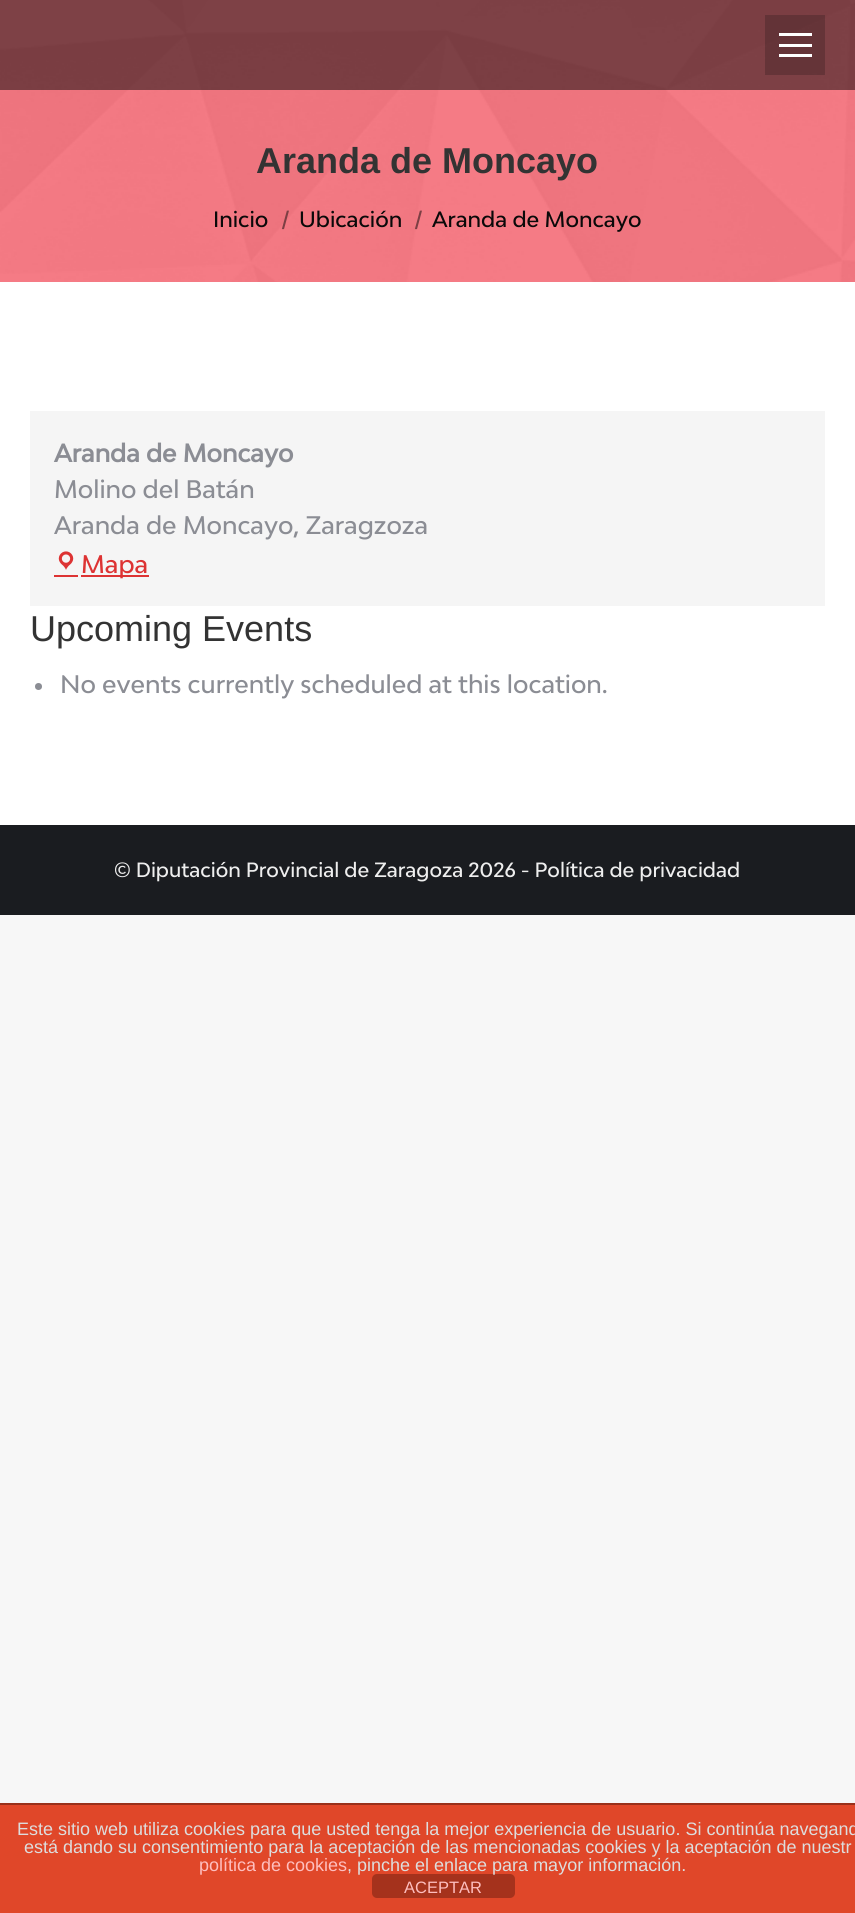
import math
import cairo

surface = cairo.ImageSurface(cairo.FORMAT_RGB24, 855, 1913)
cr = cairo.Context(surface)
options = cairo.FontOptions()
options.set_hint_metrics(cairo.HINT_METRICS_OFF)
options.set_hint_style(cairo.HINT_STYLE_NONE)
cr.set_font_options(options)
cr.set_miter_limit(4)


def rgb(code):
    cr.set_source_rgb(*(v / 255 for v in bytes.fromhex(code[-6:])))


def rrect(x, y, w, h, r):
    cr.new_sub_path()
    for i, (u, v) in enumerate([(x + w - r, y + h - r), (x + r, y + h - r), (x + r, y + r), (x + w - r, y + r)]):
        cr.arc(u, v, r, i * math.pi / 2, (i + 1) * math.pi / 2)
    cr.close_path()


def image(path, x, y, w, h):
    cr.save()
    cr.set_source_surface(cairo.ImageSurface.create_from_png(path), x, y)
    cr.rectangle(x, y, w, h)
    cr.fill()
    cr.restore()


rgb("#f7f7f7")
cr.paint()
rgb("#ffffff")
cr.rectangle(0, 282, 855, 543)
cr.fill()
rgb("#f36873")
cr.rectangle(0, 0, 855, 282)
cr.fill()
image("img/1.png", 0, 0, 855, 282)
cr.set_source_rgba(0.039, 0.039, 0.039, 0.5)
cr.rectangle(0, 0, 855, 90)
cr.fill()
cr.set_source_rgba(0.039, 0.039, 0.039, 0.2)
cr.rectangle(765, 15, 60, 60)
cr.fill()
rgb("#ffffff")
cr.rectangle(779, 33, 33, 3)
cr.rectangle(779, 44, 33, 3)
cr.rectangle(779, 54, 33, 3)
cr.fill()
rgb("#f5f5f5")
cr.rectangle(30, 411, 795, 195)
cr.fill()
image("img/2.png", 58, 551, 16, 19)
rgb("#dd3333")
cr.rectangle(54, 575, 24, 2)
cr.fill()
cr.rectangle(81, 575, 68, 2)
cr.fill()
rgb("#8b8d94")
cr.arc(38.5, 686.5, 3.5, 0, 2 * math.pi)
cr.fill()
for x, y, w, h, color in [
    (0, 825, 855, 90, "#1a1c20"),
    (0, 1805, 855, 108, "#e04729"),
    (0, 1803, 855, 2, "#99301b"),
]:
    rgb(color)
    cr.rectangle(x, y, w, h)
    cr.fill()
rgb("#a5321c")
rrect(372, 1874, 143, 24, 5)
cr.fill()
cr.select_font_face("Liberation Sans", cairo.FONT_SLANT_NORMAL, cairo.FONT_WEIGHT_BOLD)
cr.set_font_size(36)
rgb("#333333")
cr.move_to(256, 173)
cr.show_text("Aranda de Moncayo")
cr.select_font_face("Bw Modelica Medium")
cr.set_font_size(21)
rgb("#0a0909")
cr.move_to(213, 227)
cr.show_text("Inicio")
rgb("#7d3f44")
cr.move_to(281, 227)
cr.show_text("/")
rgb("#0a0909")
cr.move_to(299, 227)
cr.show_text("Ubicación")
rgb("#7d3f44")
cr.move_to(414, 227)
cr.show_text("/")
rgb("#0a0909")
cr.move_to(432, 227)
cr.show_text("Aranda de Moncayo")
cr.select_font_face("Bw Modelica", cairo.FONT_SLANT_NORMAL, cairo.FONT_WEIGHT_BOLD)
cr.set_font_size(24)
rgb("#8b8d94")
cr.move_to(54, 462)
cr.show_text("Aranda de Moncayo")
cr.select_font_face("Bw Modelica Medium")
cr.move_to(54, 498)
cr.show_text("Molino del Batán")
cr.move_to(54, 534)
cr.show_text("Aranda de Moncayo, Zaragzoza")
rgb("#dd3333")
cr.move_to(81, 573)
cr.show_text("Mapa")
cr.select_font_face("Liberation Sans")
cr.set_font_size(36)
rgb("#333333")
cr.move_to(30, 641)
cr.show_text("Upcoming Events")
cr.select_font_face("Bw Modelica Medium")
cr.set_font_size(24)
rgb("#8b8d94")
cr.move_to(60, 693)
cr.show_text("No events currently scheduled at this location.")
cr.set_font_size(19.5)
rgb("#eeeeee")
cr.move_to(114, 877)
cr.show_text("© Diputación Provincial de Zaragoza 2026 - Política de privacidad")
cr.select_font_face("Liberation Sans")
cr.set_font_size(18)
rgb("#dddddd")
cr.move_to(17, 1835)
cr.show_text("Este sitio web utiliza cookies para que usted tenga la mejor experiencia de usuario. Si continúa navegand")
cr.move_to(24, 1853)
cr.show_text("está dando su consentimiento para la aceptación de las mencionadas cookies y la aceptación de nuestr")
rgb("#febebe")
cr.move_to(199, 1871)
cr.show_text("política de cookies")
rgb("#dddddd")
cr.move_to(347, 1871)
cr.show_text(", pinche el enlace para mayor información.")
cr.set_font_size(16.5)
rgb("#febebe")
cr.move_to(404, 1893)
cr.show_text("ACEPTAR")
surface.write_to_png("page.png")
